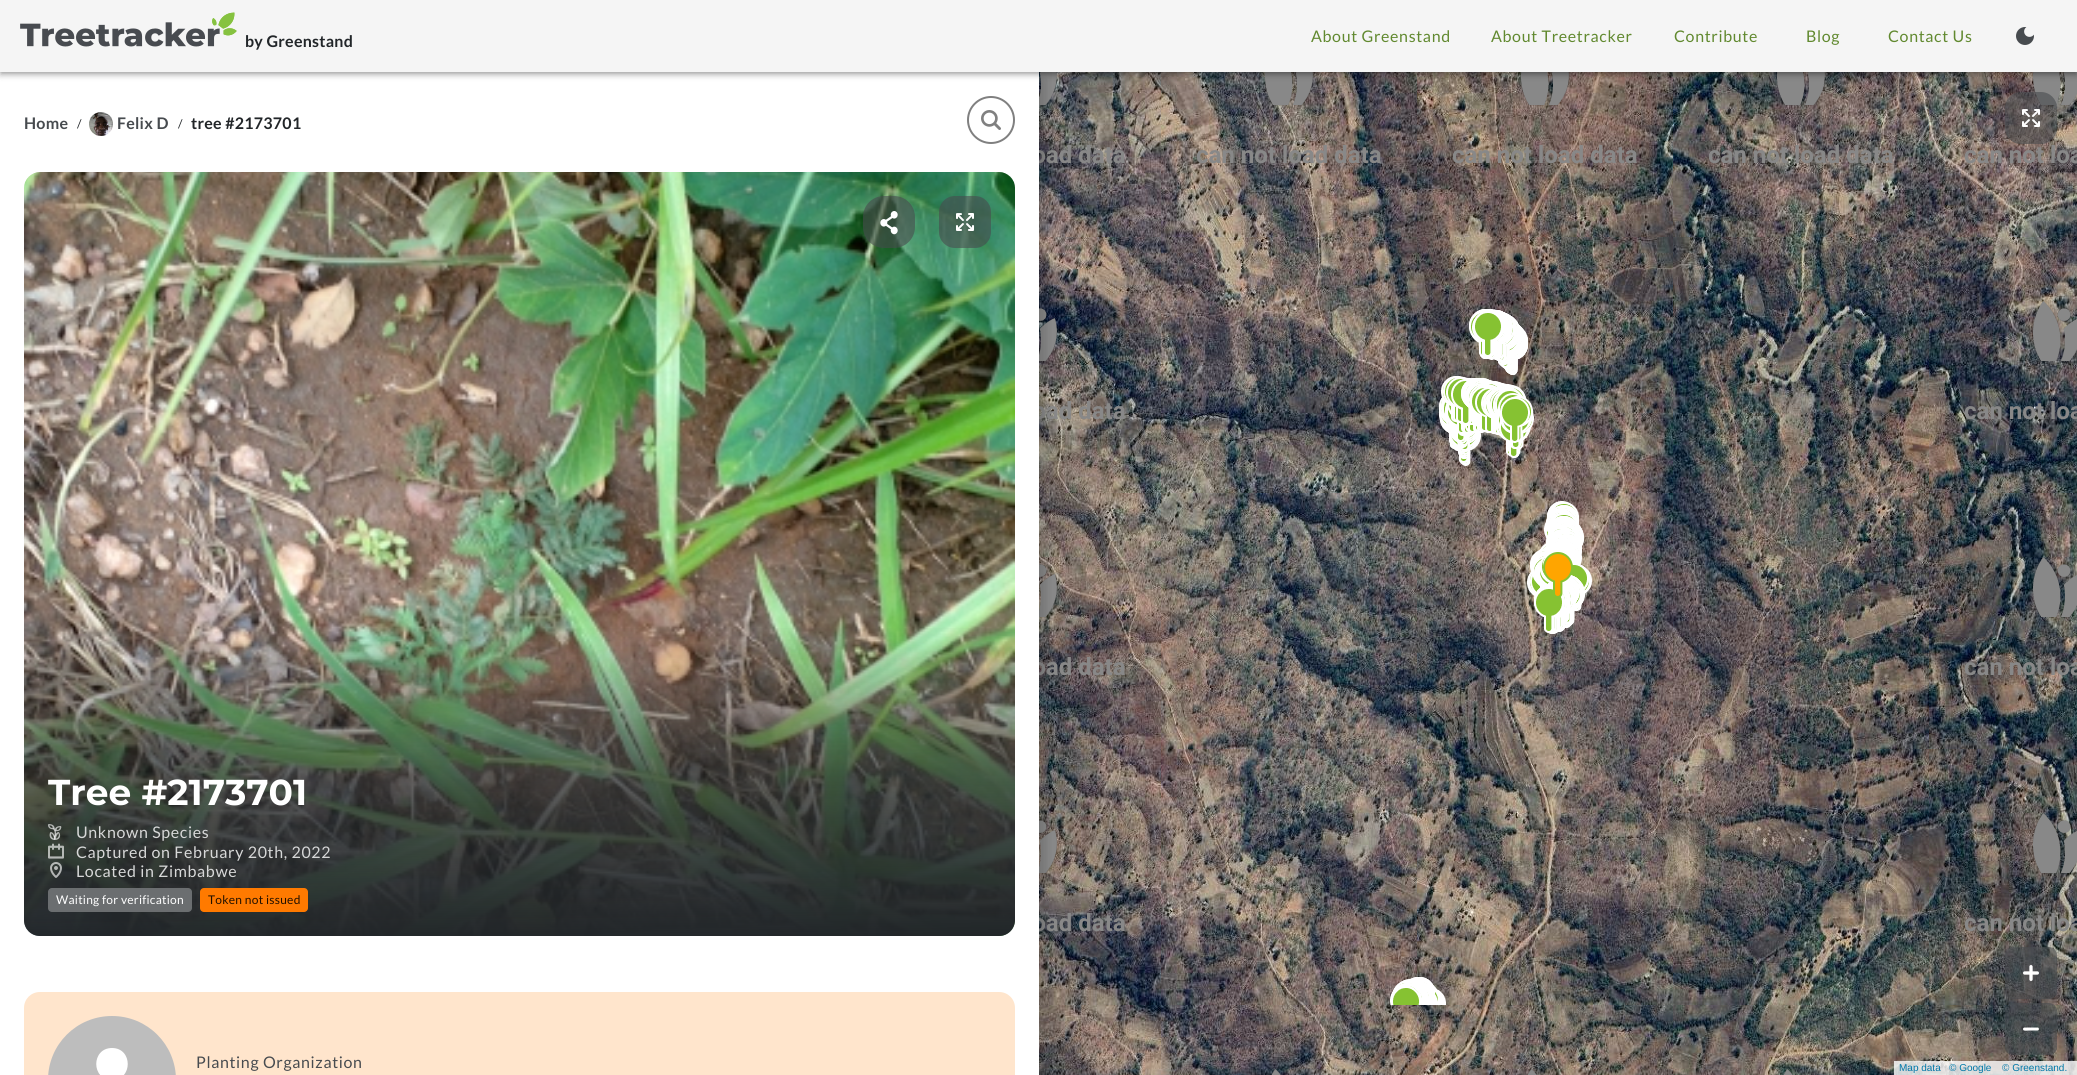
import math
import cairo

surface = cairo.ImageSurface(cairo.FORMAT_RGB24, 2077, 1075)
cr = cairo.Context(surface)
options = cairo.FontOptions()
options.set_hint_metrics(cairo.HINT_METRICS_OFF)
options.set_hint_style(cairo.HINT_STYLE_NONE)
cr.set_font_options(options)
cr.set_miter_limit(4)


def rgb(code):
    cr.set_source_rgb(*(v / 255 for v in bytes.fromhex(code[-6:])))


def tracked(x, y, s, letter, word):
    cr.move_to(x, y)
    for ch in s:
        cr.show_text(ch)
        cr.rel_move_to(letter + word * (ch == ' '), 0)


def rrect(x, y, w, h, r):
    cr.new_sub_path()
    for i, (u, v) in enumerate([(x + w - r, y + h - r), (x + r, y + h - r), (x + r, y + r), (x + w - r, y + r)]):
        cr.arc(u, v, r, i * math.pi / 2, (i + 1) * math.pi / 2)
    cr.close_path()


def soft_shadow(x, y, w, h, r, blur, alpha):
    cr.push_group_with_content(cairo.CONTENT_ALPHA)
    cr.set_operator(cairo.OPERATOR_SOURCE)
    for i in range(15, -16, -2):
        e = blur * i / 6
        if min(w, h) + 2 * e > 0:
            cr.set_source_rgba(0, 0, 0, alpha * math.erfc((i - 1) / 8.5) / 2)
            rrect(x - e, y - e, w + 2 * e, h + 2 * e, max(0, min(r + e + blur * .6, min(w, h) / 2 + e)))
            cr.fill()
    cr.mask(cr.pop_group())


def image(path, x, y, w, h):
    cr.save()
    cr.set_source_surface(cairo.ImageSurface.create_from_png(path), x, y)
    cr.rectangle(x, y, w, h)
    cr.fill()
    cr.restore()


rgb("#ffffff")
cr.paint()
image("img/13.png", 1039, 72, 122, 165)
image("img/14.png", 1161, 72, 256, 165)
image("img/15.png", 1417, 72, 256, 165)
image("img/16.png", 1673, 72, 256, 165)
image("img/17.png", 1929, 72, 148, 165)
image("img/38.png", 1039, 72, 86, 92)
image("img/39.png", 1196, 72, 185, 92)
image("img/40.png", 1452, 72, 185, 92)
image("img/41.png", 1708, 72, 185, 92)
image("img/42.png", 1964, 72, 113, 92)
rgb("#000000")
soft_shadow(0, 1, 2077, 72, 0, 5, 0.12)
soft_shadow(0, 4, 2077, 72, 0, 2.5, 0.14)
soft_shadow(1, 3, 2075, 70, 0, 2, 0.2)
image("img/18.png", 1039, 237, 122, 256)
image("img/23.png", 1039, 493, 122, 256)
image("img/28.png", 1039, 749, 122, 256)
image("img/33.png", 1039, 1005, 122, 70)
image("img/43.png", 1039, 308, 86, 112)
image("img/46.png", 1039, 564, 86, 112)
image("img/49.png", 1039, 820, 86, 112)
cr.save()
cr.rectangle(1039, 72, 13, 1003)
cr.clip()
soft_shadow(-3, 73, 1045, 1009, 0, 10, 0.12)
cr.restore()
cr.save()
cr.rectangle(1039, 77, 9, 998)
cr.clip()
soft_shadow(-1, 82, 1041, 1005, 0, 7.5, 0.14)
cr.restore()
rgb("#f5f5f5")
cr.rectangle(0, 0, 2077, 72)
cr.fill()
image("img/1.png", 20, 12, 217, 35)
image("img/2.png", 2016, 27, 18, 18)
image("img/3.png", 89, 112, 24, 24)
image("img/4.png", 967, 96, 48, 48)
image("img/5.png", 24, 172, 991, 764)
image("img/6.png", 863, 196, 52, 52)
image("img/7.png", 939, 196, 52, 52)
gradient = cairo.LinearGradient(545, 942, 542, 622)
gradient.add_color_stop_rgba(0, 0.133, 0.149, 0.161, 1)
gradient.add_color_stop_rgba(0.38, 0.133, 0.149, 0.161, 0.8)
gradient.add_color_stop_rgba(0.5, 0.133, 0.149, 0.161, 0.7)
gradient.add_color_stop_rgba(0.58, 0.133, 0.149, 0.161, 0.6)
gradient.add_color_stop_rgba(0.83, 0.133, 0.149, 0.161, 0.2)
gradient.add_color_stop_rgba(0.93, 0.133, 0.149, 0.161, 0.05)
gradient.add_color_stop_rgba(0.99, 0.133, 0.149, 0.161, 0)
cr.set_source(gradient)
cr.new_path()
cr.move_to(24, 628)
cr.line_to(1015, 628)
cr.line_to(1015, 920)
cr.curve_to(1015, 929, 1008, 936, 999, 936)
cr.line_to(40, 936)
cr.curve_to(31, 936, 24, 929, 24, 920)
cr.close_path()
cr.fill()
image("img/8.png", 48, 824, 14, 16)
image("img/9.png", 48, 843, 16, 16)
image("img/10.png", 50, 862, 12, 16)
rgb("#6b6e70")
rrect(48, 888, 144, 24, 4)
cr.fill()
rgb("#ff7a00")
rrect(200, 888, 108, 24, 4)
cr.fill()
rgb("#ffe5cc")
cr.new_path()
cr.move_to(40, 992)
cr.line_to(999, 992)
cr.curve_to(1008, 992, 1015, 999, 1015, 1008)
cr.line_to(1015, 1075)
cr.line_to(24, 1075)
cr.line_to(24, 1008)
cr.curve_to(24, 999, 31, 992, 40, 992)
cr.close_path()
cr.fill()
rgb("#bdbdbd")
cr.new_path()
cr.move_to(112, 1016)
cr.curve_to(147.5, 1016, 176, 1044.5, 176, 1080)
cr.line_to(176, 1075)
cr.line_to(48, 1075)
cr.line_to(48, 1080)
cr.curve_to(48, 1044.5, 76.5, 1016, 112, 1016)
cr.close_path()
cr.fill()
rgb("#ffffff")
cr.new_path()
cr.move_to(112, 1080)
cr.curve_to(133, 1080, 133, 1048, 112, 1048)
cr.curve_to(91, 1048, 91, 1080, 112, 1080)
cr.close_path()
cr.move_to(112, 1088)
cr.curve_to(101, 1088, 80, 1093, 80, 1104)
cr.line_to(80, 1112)
cr.line_to(144, 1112)
cr.line_to(144, 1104)
cr.curve_to(144, 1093, 123, 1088, 112, 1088)
cr.close_path()
cr.fill()
image("img/11.png", 2005, 92, 52, 52)
image("img/32.png", 1929, 749, 148, 256)
image("img/12.png", 2005, 947, 52, 52)
image("img/37.png", 1929, 1005, 148, 70)
cr.set_source_rgba(0.278, 0.294, 0.31, 0.6)
rrect(2005, 1003, 52, 52, 8)
cr.fill()
rgb("#ffffff")
cr.set_fill_rule(cairo.FILL_RULE_EVEN_ODD)
cr.new_path()
cr.move_to(2024.5, 1027.5)
cr.line_to(2038, 1027.5)
cr.curve_to(2039.5, 1028.5, 2039, 1030.5, 2037.5, 1030.5)
cr.line_to(2029, 1030.5)
cr.curve_to(2027.5, 1030.5, 2023, 1031.5, 2023, 1029)
cr.curve_to(2023, 1028, 2024, 1027.5, 2024.5, 1027.5)
cr.close_path()
cr.fill()
image("img/19.png", 1161, 237, 256, 256)
image("img/20.png", 1417, 237, 256, 256)
image("img/21.png", 1673, 237, 256, 256)
image("img/22.png", 1929, 237, 148, 256)
image("img/24.png", 1161, 493, 256, 256)
image("img/25.png", 1417, 493, 256, 256)
image("img/26.png", 1673, 493, 256, 256)
image("img/27.png", 1929, 493, 148, 256)
image("img/29.png", 1161, 749, 256, 256)
image("img/30.png", 1417, 749, 256, 256)
image("img/31.png", 1673, 749, 256, 256)
image("img/34.png", 1161, 1005, 256, 70)
image("img/35.png", 1417, 1005, 256, 70)
image("img/36.png", 1673, 1005, 256, 70)
image("img/44.png", 1439, 309, 95, 157)
image("img/45.png", 1964, 301, 113, 119)
image("img/47.png", 1527, 501, 65, 133)
image("img/48.png", 1964, 557, 113, 119)
image("img/50.png", 1964, 813, 113, 119)
image("img/51.png", 1390, 977, 27, 28)
image("img/52.png", 1417, 977, 29, 28)
image("img/53.png", 1271, 1069, 10, 6)
image("img/54.png", 1527, 1069, 10, 6)
image("img/55.png", 1783, 1069, 10, 6)
image("img/56.png", 2040, 1069, 9, 6)
image("img/57.png", 1543, 552, 30, 45)
cr.set_source_rgba(1, 1, 1, 0.8)
cr.rectangle(1894, 1061, 183, 14)
cr.fill()
cr.select_font_face("Lato", cairo.FONT_SLANT_NORMAL, cairo.FONT_WEIGHT_BOLD)
cr.set_font_size(16)
rgb("#222629")
tracked(245, 47, "by Greenstand", 0.25, 0)
cr.select_font_face("Lato")
rgb("#61892f")
for x, y, s in [
    (1311, 42, "About Greenstand"),
    (1491, 42, "About Treetracker"),
    (1674, 42, "Contribute"),
    (1806, 42, "Blog"),
    (1888, 42, "Contact Us"),
]:
    tracked(x, y, s, 0.65, 0)
cr.select_font_face("Lato", cairo.FONT_SLANT_NORMAL, cairo.FONT_WEIGHT_BOLD)
rgb("#474b4f")
tracked(24, 129, "Home", 0.25, 0)
cr.select_font_face("Lato")
cr.set_font_size(12)
rgb("#222629")
cr.move_to(77, 128)
cr.show_text("/")
cr.select_font_face("Lato", cairo.FONT_SLANT_NORMAL, cairo.FONT_WEIGHT_BOLD)
cr.set_font_size(16)
rgb("#474b4f")
tracked(117, 129, "Felix D", 0.25, 0)
cr.select_font_face("Lato")
cr.set_font_size(12)
rgb("#222629")
cr.move_to(178, 128)
cr.show_text("/")
cr.select_font_face("Lato", cairo.FONT_SLANT_NORMAL, cairo.FONT_WEIGHT_BOLD)
cr.set_font_size(16)
tracked(191, 129, "tree #2173701", 0.25, 0)
cr.select_font_face("Montserrat", cairo.FONT_SLANT_NORMAL, cairo.FONT_WEIGHT_BOLD)
cr.set_font_size(36)
rgb("#ffffff")
cr.move_to(48, 805)
cr.show_text("Tree #2173701")
cr.select_font_face("Lato")
cr.set_font_size(16)
rgb("#d7d8d8")
for x, y, s in [
    (76, 838, "Unknown Species"),
    (76, 858, "Captured on February 20th, 2022"),
    (76, 877, "Located in Zimbabwe"),
]:
    tracked(x, y, s, 0.65, 0)
cr.set_font_size(12)
rgb("#ffffff")
tracked(56, 904, "Waiting for verification", 0.25, 0)
rgb("#211000")
tracked(208, 904, "Token not issued", 0.25, 0)
cr.set_font_size(16)
rgb("#474b4f")
tracked(196, 1068, "Planting Organization", 0.65, 0)
cr.select_font_face("Liberation Sans")
cr.set_font_size(10)
rgb("#0078a8")
cr.move_to(1899, 1071)
cr.show_text("Map data   © Google")
cr.move_to(2002, 1071)
cr.show_text("© Greenstand.")
surface.write_to_png("page.png")
